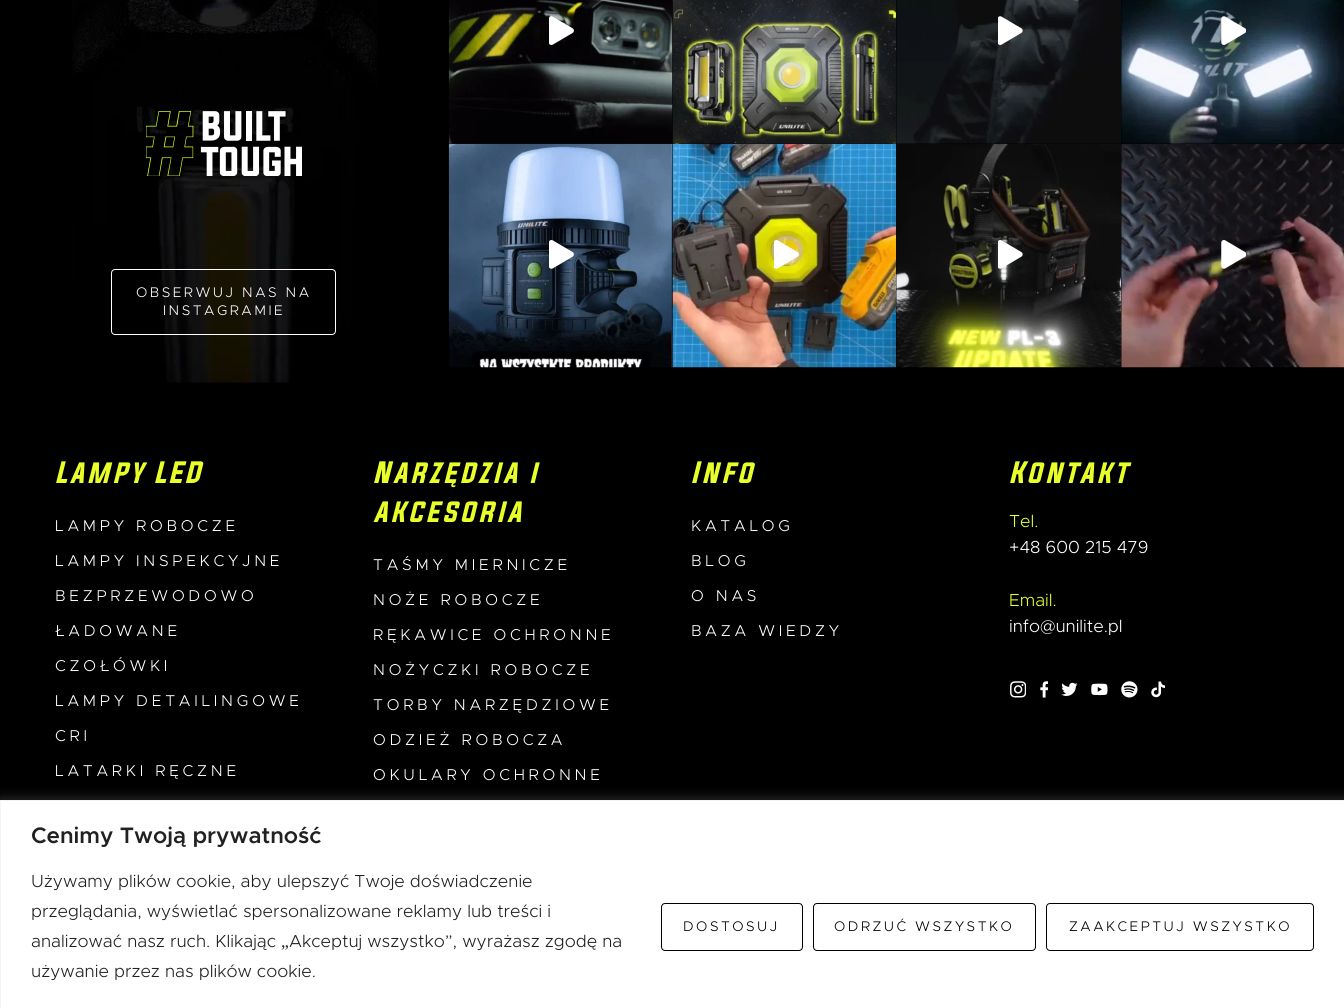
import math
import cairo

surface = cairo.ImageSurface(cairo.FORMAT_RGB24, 1344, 1008)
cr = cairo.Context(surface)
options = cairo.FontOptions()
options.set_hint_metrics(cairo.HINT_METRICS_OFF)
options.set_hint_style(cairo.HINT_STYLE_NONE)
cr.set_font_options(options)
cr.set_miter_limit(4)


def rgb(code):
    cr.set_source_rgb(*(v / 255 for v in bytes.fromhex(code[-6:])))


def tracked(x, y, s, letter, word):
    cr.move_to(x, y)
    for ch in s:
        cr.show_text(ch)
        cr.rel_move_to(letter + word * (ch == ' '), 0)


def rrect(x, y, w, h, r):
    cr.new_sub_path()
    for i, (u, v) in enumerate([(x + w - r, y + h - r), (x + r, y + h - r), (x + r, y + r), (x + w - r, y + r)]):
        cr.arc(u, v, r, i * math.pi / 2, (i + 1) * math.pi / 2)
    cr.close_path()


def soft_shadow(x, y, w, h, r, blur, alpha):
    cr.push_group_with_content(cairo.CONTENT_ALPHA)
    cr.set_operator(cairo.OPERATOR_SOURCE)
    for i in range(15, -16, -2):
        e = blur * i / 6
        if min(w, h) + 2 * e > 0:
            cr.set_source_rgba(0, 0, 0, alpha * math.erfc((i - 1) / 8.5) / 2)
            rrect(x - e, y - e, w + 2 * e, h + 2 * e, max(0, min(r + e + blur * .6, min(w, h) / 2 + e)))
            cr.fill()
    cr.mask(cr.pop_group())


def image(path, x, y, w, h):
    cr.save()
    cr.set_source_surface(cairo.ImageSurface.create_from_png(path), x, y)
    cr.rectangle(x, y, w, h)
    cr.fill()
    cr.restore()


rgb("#000000")
cr.paint()
image("img/1.png", 72, 0, 306, 383)
image("img/2.png", 146, 111, 156, 65)
rrect(111.5, 269.5, 224, 65, 3.5)
rgb("#ffffff")
cr.set_line_width(1)
cr.stroke()
image("img/3.png", 448, 0, 225, 144)
image("img/4.png", 549, 16, 25, 29)
image("img/5.png", 672, 0, 225, 144)
image("img/6.png", 896, 0, 225, 144)
image("img/7.png", 998, 16, 25, 29)
image("img/8.png", 1121, 0, 223, 144)
image("img/9.png", 1221, 16, 25, 29)
image("img/10.png", 448, 143, 225, 225)
image("img/11.png", 549, 240, 25, 29)
image("img/12.png", 672, 143, 225, 225)
image("img/13.png", 774, 240, 25, 29)
image("img/14.png", 896, 143, 226, 225)
image("img/15.png", 998, 240, 25, 29)
image("img/16.png", 1121, 144, 223, 224)
image("img/17.png", 1221, 240, 25, 29)
image("img/18.png", 1010, 681, 16, 17)
image("img/19.png", 1040, 681, 8, 17)
image("img/20.png", 1061, 682, 17, 14)
image("img/21.png", 1091, 683, 17, 13)
image("img/22.png", 1121, 681, 17, 17)
image("img/23.png", 1151, 681, 14, 17)
rgb("#acabab")
soft_shadow(0, 799, 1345, 209, 0, 6, 0.3)
rgb("#ffffff")
cr.rectangle(0.5, 800.5, 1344, 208)
cr.fill_preserve()
rgb("#f4f4f4")
cr.stroke()
rrect(661.5, 903.5, 141, 47, 3.5)
rgb("#000000")
cr.stroke()
rrect(813.5, 903.5, 222, 47, 3.5)
cr.stroke()
rrect(1046.5, 903.5, 267, 47, 3.5)
cr.stroke()
cr.select_font_face("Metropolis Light")
cr.set_font_size(14)
rgb("#ffffff")
tracked(136, 297, "OBSERWUJ NAS NA", 2.5, 0)
tracked(163, 315, "INSTAGRAMIE", 2.5, 0)
cr.select_font_face("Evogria", cairo.FONT_SLANT_ITALIC)
cr.set_font_size(26.25)
rgb("#e8ff29")
tracked(55, 483, "Lampy LED", 2.5, 0)
cr.select_font_face("Metropolis Light")
cr.set_font_size(15.75)
rgb("#ffffff")
for x, y, s in [
    (55, 531, "LAMPY ROBOCZE"),
    (55, 566, "LAMPY INSPEKCYJNE"),
    (55, 601, "BEZPRZEWODOWO"),
    (55, 636, "ŁADOWANE"),
    (55, 671, "CZOŁÓWKI"),
    (55, 706, "LAMPY DETAILINGOWE"),
    (55, 741, "CRI"),
    (55, 776, "LATARKI RĘCZNE"),
]:
    tracked(x, y, s, 3.75, 0)
cr.select_font_face("Evogria", cairo.FONT_SLANT_ITALIC)
cr.set_font_size(26.25)
rgb("#e8ff29")
tracked(373, 483, "Narzędzia i", 2.5, 0)
tracked(373, 522, "akcesoria", 2.5, 0)
cr.select_font_face("Metropolis Light")
cr.set_font_size(15.75)
rgb("#ffffff")
for x, y, s in [
    (373, 570, "TAŚMY MIERNICZE"),
    (373, 605, "NOŻE ROBOCZE"),
    (373, 640, "RĘKAWICE OCHRONNE"),
    (373, 675, "NOŻYCZKI ROBOCZE"),
    (373, 710, "TORBY NARZĘDZIOWE"),
    (373, 745, "ODZIEŻ ROBOCZA"),
    (373, 780, "OKULARY OCHRONNE"),
]:
    tracked(x, y, s, 3.75, 0)
cr.select_font_face("Evogria", cairo.FONT_SLANT_ITALIC)
cr.set_font_size(26.25)
rgb("#e8ff29")
tracked(691, 483, "Info", 2.5, 0)
cr.select_font_face("Metropolis Light")
cr.set_font_size(15.75)
rgb("#ffffff")
for x, y, s in [
    (691, 531, "KATALOG"),
    (691, 566, "BLOG"),
    (691, 601, "O NAS"),
    (691, 636, "BAZA WIEDZY"),
]:
    tracked(x, y, s, 3.75, 0)
cr.select_font_face("Evogria", cairo.FONT_SLANT_ITALIC)
cr.set_font_size(26.25)
rgb("#e8ff29")
tracked(1009, 483, "Kontakt", 2.5, 0)
cr.select_font_face("Metropolis Light")
cr.set_font_size(17.5)
rgb("#e2ff29")
cr.move_to(1009, 527)
cr.show_text("Tel.")
rgb("#ffffff")
cr.move_to(1009, 553)
cr.show_text("+48 600 215 479")
rgb("#e2ff29")
cr.move_to(1009, 606)
cr.show_text("Email.")
rgb("#ffffff")
cr.move_to(1009, 632)
cr.show_text("info@unilite.pl")
cr.select_font_face("Metropolis SemiBold")
cr.set_font_size(22.5)
rgb("#212121")
cr.move_to(31, 843)
cr.show_text("Cenimy Twoją prywatność")
cr.select_font_face("Metropolis Light")
cr.set_font_size(17.5)
for x, y, s in [
    (31, 887, "Używamy plików cookie, aby ulepszyć Twoje doświadczenie"),
    (31, 917, "przeglądania, wyświetlać spersonalizowane reklamy lub treści i"),
    (31, 947, "analizować nasz ruch. Klikając"),
]:
    cr.move_to(x, y)
    cr.show_text(s)
cr.select_font_face("Liberation Serif")
cr.move_to(281, 947)
cr.show_text("„")
cr.select_font_face("Metropolis Light")
cr.move_to(289, 947)
cr.show_text("Akceptuj wszystko”, wyrażasz zgodę na")
cr.move_to(31, 977)
cr.show_text("używanie przez nas plików cookie.")
cr.set_font_size(14)
rgb("#000000")
for x, y, s in [
    (683, 931, "DOSTOSUJ"),
    (834, 931, "ODRZUĆ WSZYSTKO"),
    (1069, 931, "ZAAKCEPTUJ WSZYSTKO"),
]:
    tracked(x, y, s, 2.5, 0)
surface.write_to_png("page.png")
